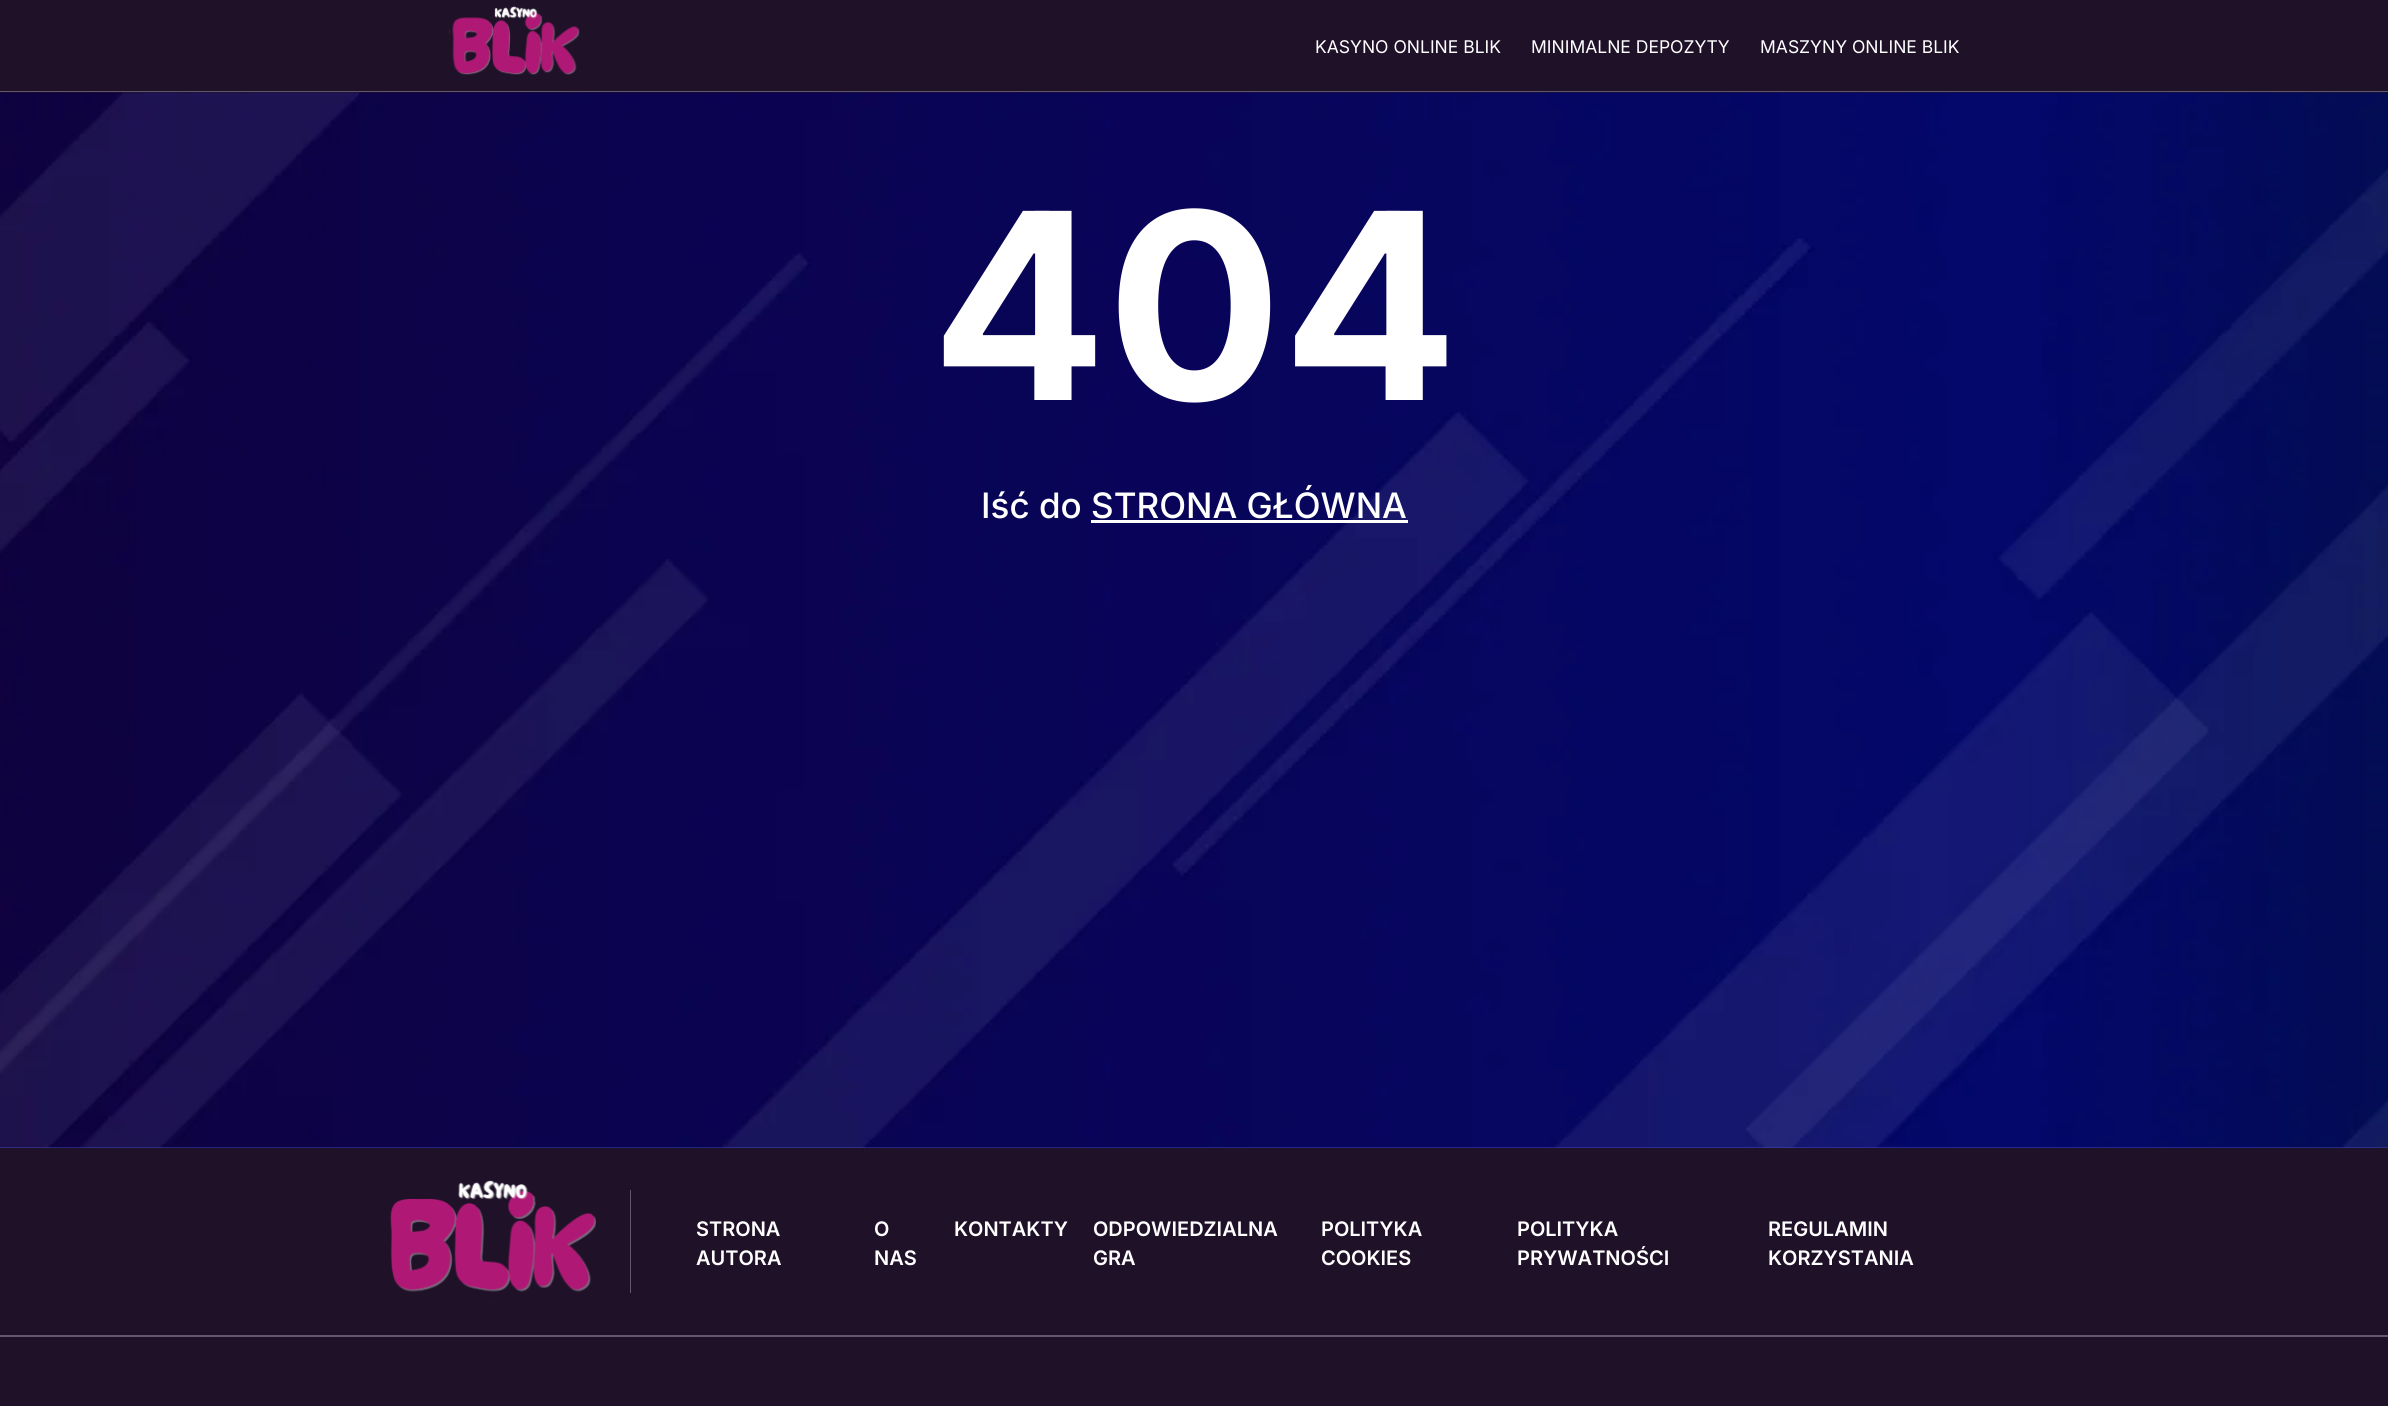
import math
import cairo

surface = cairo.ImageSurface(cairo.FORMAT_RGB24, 2388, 1406)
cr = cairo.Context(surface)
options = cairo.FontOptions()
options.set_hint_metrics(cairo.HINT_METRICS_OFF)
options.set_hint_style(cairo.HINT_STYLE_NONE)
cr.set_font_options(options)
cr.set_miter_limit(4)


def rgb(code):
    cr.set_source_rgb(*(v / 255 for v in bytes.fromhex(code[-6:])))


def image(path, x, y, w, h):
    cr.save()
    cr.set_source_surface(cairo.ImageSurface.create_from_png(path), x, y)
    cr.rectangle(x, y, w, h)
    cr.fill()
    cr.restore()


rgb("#1f1128")
cr.paint()
rgb("#625869")
cr.rectangle(0, 91, 2388, 1)
cr.fill()
image("img/1.png", 449, 6, 131, 69)
rgb("#4247b8")
cr.rectangle(0, 1147, 2388, 1)
cr.fill()
image("img/2.png", 0, 92, 2388, 1056)
rgb("#ffffff")
cr.rectangle(1091, 520, 317, 3)
cr.fill()
rgb("#625869")
cr.rectangle(0, 1335, 2388, 2)
cr.fill()
image("img/3.png", 390, 1180, 206, 123)
cr.rectangle(630, 1190, 1, 103)
cr.fill()
cr.select_font_face("Inter")
cr.set_font_size(17.5)
rgb("#ffffff")
for x, y, s in [
    (1315, 53, "KASYNO ONLINE BLIK"),
    (1531, 53, "MINIMALNE DEPOZYTY"),
    (1760, 53, "MASZYNY ONLINE BLIK"),
]:
    cr.move_to(x, y)
    cr.show_text(s)
cr.select_font_face("Inter", cairo.FONT_SLANT_NORMAL, cairo.FONT_WEIGHT_BOLD)
cr.set_font_size(260)
cr.move_to(931, 400)
cr.show_text("404")
cr.select_font_face("Inter Medium")
cr.set_font_size(35)
cr.move_to(981, 518)
cr.show_text("Iść do STRONA GŁÓWNA")
cr.select_font_face("Inter SemiBold")
cr.set_font_size(20)
for x, y, s in [
    (696, 1236, "STRONA"),
    (696, 1265, "AUTORA"),
    (874, 1236, "O"),
    (874, 1265, "NAS"),
    (954, 1236, "KONTAKTY"),
    (1093, 1236, "ODPOWIEDZIALNA"),
    (1093, 1265, "GRA"),
    (1321, 1236, "POLITYKA"),
    (1321, 1265, "COOKIES"),
    (1517, 1236, "POLITYKA"),
    (1517, 1265, "PRYWATNOŚCI"),
    (1768, 1236, "REGULAMIN"),
    (1768, 1265, "KORZYSTANIA"),
]:
    cr.move_to(x, y)
    cr.show_text(s)
surface.write_to_png("page.png")
